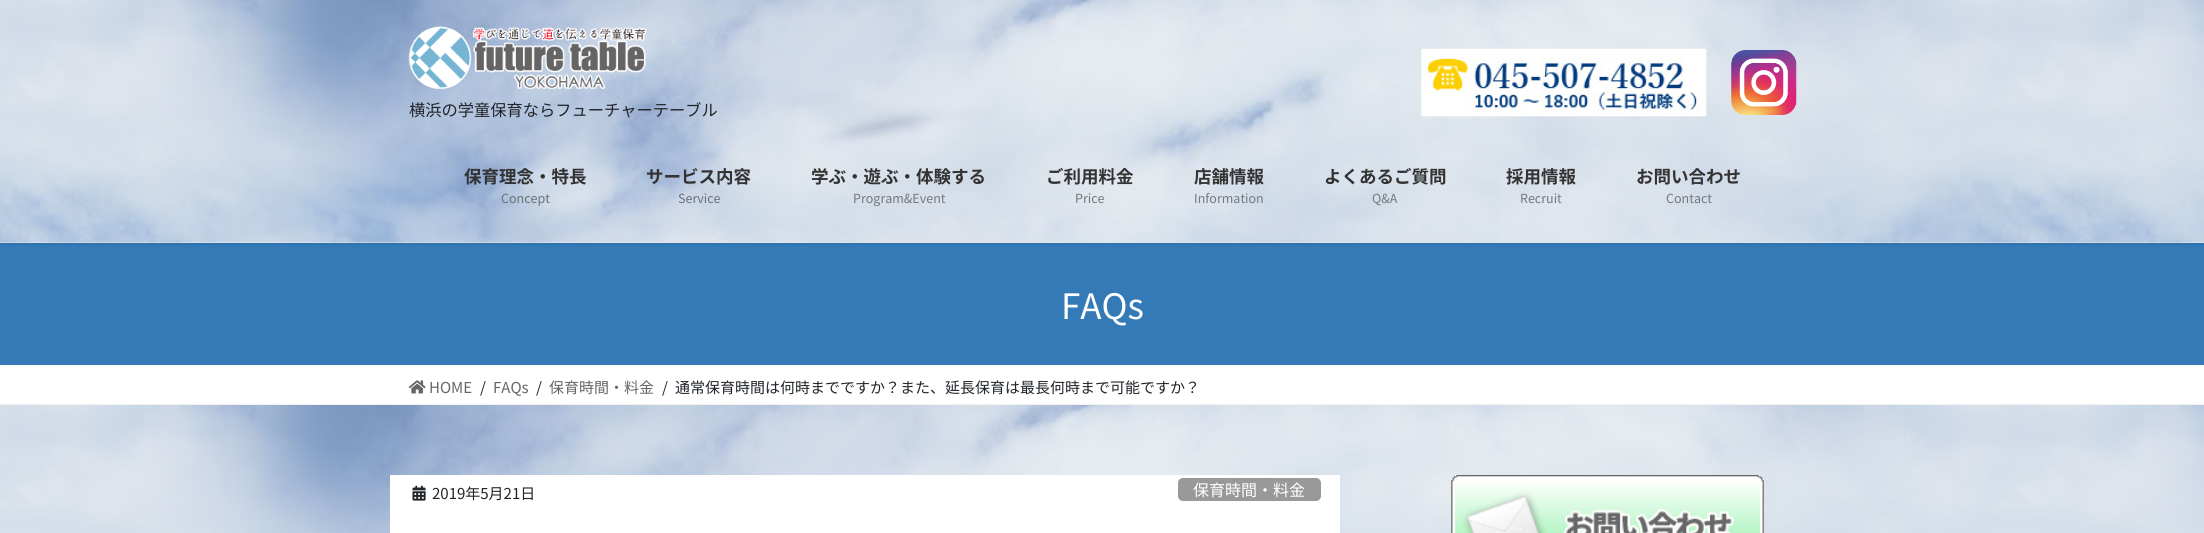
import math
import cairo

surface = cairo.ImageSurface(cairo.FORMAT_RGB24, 2204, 533)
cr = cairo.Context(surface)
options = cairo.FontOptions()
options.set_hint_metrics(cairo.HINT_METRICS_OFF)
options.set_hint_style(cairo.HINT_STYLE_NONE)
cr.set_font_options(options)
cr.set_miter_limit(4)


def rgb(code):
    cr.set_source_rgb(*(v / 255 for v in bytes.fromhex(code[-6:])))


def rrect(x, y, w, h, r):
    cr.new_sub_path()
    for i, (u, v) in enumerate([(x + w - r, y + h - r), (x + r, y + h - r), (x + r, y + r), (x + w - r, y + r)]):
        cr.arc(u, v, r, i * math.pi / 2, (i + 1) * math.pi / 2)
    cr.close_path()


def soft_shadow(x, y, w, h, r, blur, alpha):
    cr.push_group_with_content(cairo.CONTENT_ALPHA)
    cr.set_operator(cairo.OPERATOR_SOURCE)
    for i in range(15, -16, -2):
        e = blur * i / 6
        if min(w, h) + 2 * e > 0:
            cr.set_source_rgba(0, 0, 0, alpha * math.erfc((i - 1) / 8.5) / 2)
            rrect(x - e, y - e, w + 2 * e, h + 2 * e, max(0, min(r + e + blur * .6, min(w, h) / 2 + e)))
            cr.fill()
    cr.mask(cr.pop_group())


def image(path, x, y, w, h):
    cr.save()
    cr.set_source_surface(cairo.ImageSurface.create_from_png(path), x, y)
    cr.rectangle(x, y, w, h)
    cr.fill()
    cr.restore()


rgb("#ffffff")
cr.paint()
rgb("#337ab7")
cr.rectangle(0, 243, 2204, 122)
cr.fill()
rgb("#000000")
soft_shadow(0, 1, 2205, 243, 0, 2, 0.1)
image("img/1.png", 0, 0, 2204, 243)
image("img/2.png", 408, 26, 239, 63)
image("img/3.png", 1421, 48, 286, 69)
image("img/4.png", 1731, 50, 66, 65)
rgb("#f2f2f2")
cr.rectangle(0, 404, 2204, 1)
cr.fill()
image("img/5.png", 408, 380, 18, 14)
image("img/6.png", 0, 405, 2204, 128)
rgb("#ffffff")
cr.rectangle(390, 475, 950, 58)
cr.fill()
image("img/7.png", 412, 485, 14, 16)
rgb("#999999")
rrect(1178, 478, 143, 23, 5)
cr.fill()
image("img/8.png", 1451, 475, 313, 58)
cr.select_font_face("Noto Sans JP")
cr.set_font_size(16.25)
rgb("#212529")
cr.move_to(409, 116)
cr.show_text("横浜の学童保育ならフューチャーテーブル")
cr.select_font_face("Noto Sans JP", cairo.FONT_SLANT_NORMAL, cairo.FONT_WEIGHT_BOLD)
cr.set_font_size(17.5)
rgb("#333333")
cr.move_to(464, 183)
cr.show_text("保育理念・特長")
cr.select_font_face("Noto Sans JP")
cr.set_font_size(12.5)
rgb("#6b7179")
cr.move_to(501, 203)
cr.show_text("Concept")
cr.select_font_face("Noto Sans JP", cairo.FONT_SLANT_NORMAL, cairo.FONT_WEIGHT_BOLD)
cr.set_font_size(17.5)
rgb("#333333")
cr.move_to(646, 183)
cr.show_text("サービス内容")
cr.select_font_face("Noto Sans JP")
cr.set_font_size(12.5)
rgb("#6b7179")
cr.move_to(678, 203)
cr.show_text("Service")
cr.select_font_face("Noto Sans JP", cairo.FONT_SLANT_NORMAL, cairo.FONT_WEIGHT_BOLD)
cr.set_font_size(17.5)
rgb("#333333")
cr.move_to(811, 183)
cr.show_text("学ぶ・遊ぶ・体験する")
cr.select_font_face("Noto Sans JP")
cr.set_font_size(12.5)
rgb("#75787c")
cr.move_to(853, 203)
cr.show_text("Program&Event")
cr.select_font_face("Noto Sans JP", cairo.FONT_SLANT_NORMAL, cairo.FONT_WEIGHT_BOLD)
cr.set_font_size(17.5)
rgb("#333333")
cr.move_to(1046, 183)
cr.show_text("ご利用料金")
cr.select_font_face("Noto Sans JP")
cr.set_font_size(12.5)
rgb("#75787c")
cr.move_to(1075, 203)
cr.show_text("Price")
cr.select_font_face("Noto Sans JP", cairo.FONT_SLANT_NORMAL, cairo.FONT_WEIGHT_BOLD)
cr.set_font_size(17.5)
rgb("#333333")
cr.move_to(1194, 183)
cr.show_text("店舗情報")
cr.select_font_face("Noto Sans JP")
cr.set_font_size(12.5)
rgb("#75787c")
cr.move_to(1194, 203)
cr.show_text("Information")
cr.select_font_face("Noto Sans JP", cairo.FONT_SLANT_NORMAL, cairo.FONT_WEIGHT_BOLD)
cr.set_font_size(17.5)
rgb("#333333")
cr.move_to(1324, 183)
cr.show_text("よくあるご質問")
cr.select_font_face("Noto Sans JP")
cr.set_font_size(12.5)
rgb("#75787c")
cr.move_to(1372, 203)
cr.show_text("Q&A")
cr.select_font_face("Noto Sans JP", cairo.FONT_SLANT_NORMAL, cairo.FONT_WEIGHT_BOLD)
cr.set_font_size(17.5)
rgb("#333333")
cr.move_to(1506, 183)
cr.show_text("採用情報")
cr.select_font_face("Noto Sans JP")
cr.set_font_size(12.5)
rgb("#75787c")
cr.move_to(1520, 203)
cr.show_text("Recruit")
cr.select_font_face("Noto Sans JP", cairo.FONT_SLANT_NORMAL, cairo.FONT_WEIGHT_BOLD)
cr.set_font_size(17.5)
rgb("#333333")
cr.move_to(1636, 183)
cr.show_text("お問い合わせ")
cr.select_font_face("Noto Sans JP")
cr.set_font_size(12.5)
rgb("#75787c")
cr.move_to(1666, 203)
cr.show_text("Contact")
cr.set_font_size(35)
rgb("#ffffff")
cr.move_to(1061, 319)
cr.show_text("FAQs")
cr.set_font_size(15)
rgb("#666666")
cr.move_to(429, 393)
cr.show_text("HOME")
rgb("#212529")
cr.move_to(480, 393)
cr.show_text("/")
rgb("#666666")
cr.move_to(493, 393)
cr.show_text("FAQs")
rgb("#212529")
cr.move_to(536, 393)
cr.show_text("/")
rgb("#666666")
cr.move_to(549, 393)
cr.show_text("保育時間・料金")
rgb("#212529")
for x, y, s in [
    (662, 393, "/"),
    (675, 393, "通常保育時間は何時までですか？また、延長保育は最長何時まで可能ですか？"),
    (432, 499, "2019年5月21日"),
]:
    cr.move_to(x, y)
    cr.show_text(s)
cr.set_font_size(16)
rgb("#ffffff")
cr.move_to(1193, 496)
cr.show_text("保育時間・料金")
surface.write_to_png("page.png")
